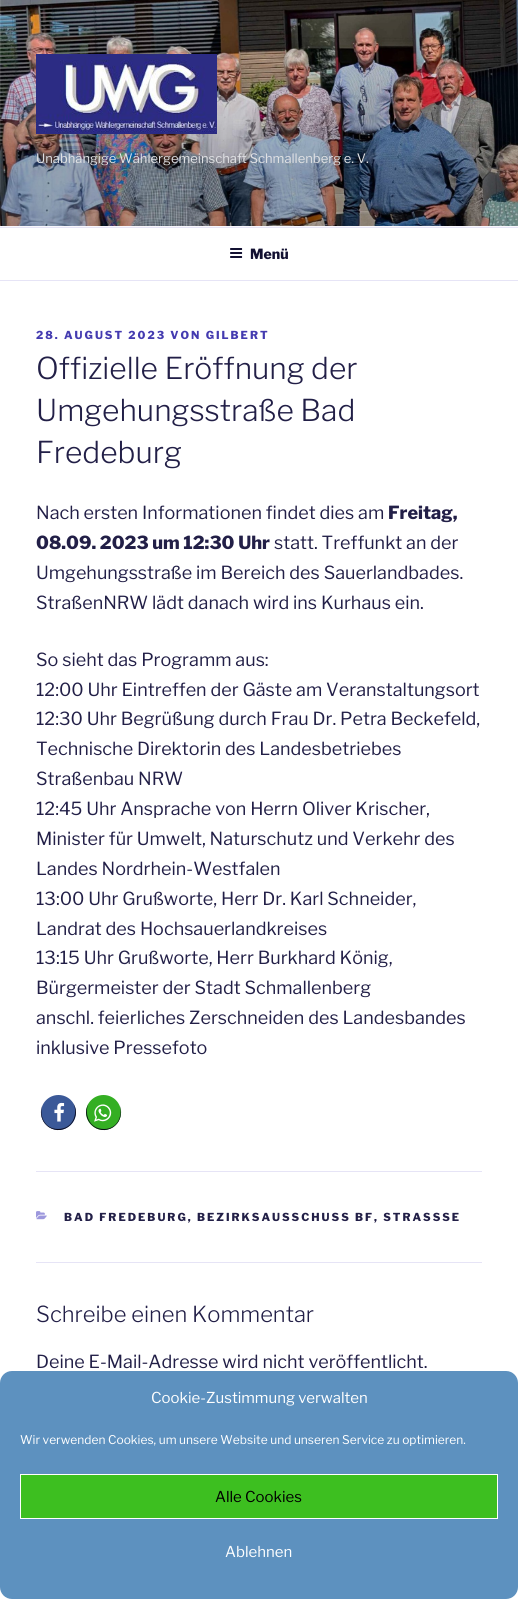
import math
import cairo

surface = cairo.ImageSurface(cairo.FORMAT_RGB24, 518, 1599)
cr = cairo.Context(surface)
options = cairo.FontOptions()
options.set_hint_metrics(cairo.HINT_METRICS_OFF)
options.set_hint_style(cairo.HINT_STYLE_NONE)
cr.set_font_options(options)
cr.set_miter_limit(4)


def rgb(code):
    cr.set_source_rgb(*(v / 255 for v in bytes.fromhex(code[-6:])))


def tracked(x, y, s, letter, word):
    cr.move_to(x, y)
    for ch in s:
        cr.show_text(ch)
        cr.rel_move_to(letter + word * (ch == ' '), 0)


def rrect(x, y, w, h, r):
    cr.new_sub_path()
    for i, (u, v) in enumerate([(x + w - r, y + h - r), (x + r, y + h - r), (x + r, y + r), (x + w - r, y + r)]):
        cr.arc(u, v, r, i * math.pi / 2, (i + 1) * math.pi / 2)
    cr.close_path()


def soft_shadow(x, y, w, h, r, blur, alpha):
    cr.push_group_with_content(cairo.CONTENT_ALPHA)
    cr.set_operator(cairo.OPERATOR_SOURCE)
    for i in range(15, -16, -2):
        e = blur * i / 6
        if min(w, h) + 2 * e > 0:
            cr.set_source_rgba(0, 0, 0, alpha * math.erfc((i - 1) / 8.5) / 2)
            rrect(x - e, y - e, w + 2 * e, h + 2 * e, max(0, min(r + e + blur * .6, min(w, h) / 2 + e)))
            cr.fill()
    cr.mask(cr.pop_group())


def image(path, x, y, w, h):
    cr.save()
    cr.set_source_surface(cairo.ImageSurface.create_from_png(path), x, y)
    cr.rectangle(x, y, w, h)
    cr.fill()
    cr.restore()


rgb("#ffffff")
cr.paint()
rgb("#f8f7fc")
cr.rectangle(0, 226, 518, 1)
cr.fill()
image("img/1.png", 0, 0, 518, 226)
image("img/2.png", 36, 54, 181, 80)
rgb("#e6e4f6")
cr.rectangle(0, 227, 518, 1)
cr.fill()
cr.rectangle(0, 280, 518, 1)
cr.fill()
image("img/3.png", 230, 248, 13, 10)
rgb("#3b5998")
cr.arc(58.5, 1112.5, 17.5, 0, 2 * math.pi)
cr.fill()
rgb("#090817")
cr.new_path()
cr.move_to(42, 1106)
cr.curve_to(40.5, 1110, 40.5, 1115, 42.5, 1119.5)
cr.curve_to(43.5, 1122.5, 46, 1125, 48.5, 1127)
cr.curve_to(64.5, 1137.5, 82.5, 1119, 73.5, 1103.5)
cr.curve_to(78, 1114, 73, 1129, 58, 1129)
cr.curve_to(44.5, 1129, 39.5, 1116, 42, 1106)
cr.close_path()
cr.fill()
image("img/4.png", 54, 1102, 11, 20)
rgb("#34af23")
cr.arc(103.5, 1112.5, 17.5, 0, 2 * math.pi)
cr.fill()
rgb("#090817")
cr.new_path()
cr.move_to(88.5, 1103.5)
cr.curve_to(79.5, 1119, 97.5, 1137.5, 113.5, 1127)
cr.curve_to(116, 1125, 118.5, 1122.5, 119.5, 1119.5)
cr.curve_to(121.5, 1115, 121.5, 1110, 120, 1106)
cr.curve_to(122.5, 1116, 117.5, 1129, 104, 1129)
cr.curve_to(89, 1129, 84, 1114, 88.5, 1103.5)
cr.close_path()
cr.fill()
image("img/5.png", 94, 1104, 18, 18)
rgb("#e6e4f6")
cr.rectangle(36, 1171, 446, 1)
cr.fill()
cr.rectangle(36, 1262, 446, 1)
cr.fill()
image("img/6.png", 36, 1211, 11, 9)
rgb("#808080")
soft_shadow(448, 1525, 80, 60, 2, 2.5, 1)
rgb("#5d91bf")
rrect(0, 1371, 518, 228, 12)
cr.fill()
rgb("#3dbf20")
cr.rectangle(20.5, 1474.5, 477, 44)
cr.fill_preserve()
rgb("#ffffff")
cr.set_line_width(1)
cr.stroke()
cr.select_font_face("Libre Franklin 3 Thin")
cr.set_font_size(13)
rgb("#e1e2e5")
cr.move_to(36, 163)
cr.show_text("Unabhängige Wählergemeinschaft Schmallenberg e. V.")
cr.select_font_face("Libre Franklin Thin")
cr.set_font_size(14)
rgb("#131132")
cr.move_to(250, 259)
cr.show_text("Menü")
cr.set_font_size(11)
rgb("#443bb0")
tracked(36, 339, "28. AUGUST 2023 VON GILBERT", 2, 0)
cr.select_font_face("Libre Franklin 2 Thin")
cr.set_font_size(30)
rgb("#221f47")
for x, y, s in [
    (36, 379, "Offizielle Eröffnung der"),
    (36, 421, "Umgehungsstraße Bad"),
    (36, 463, "Fredeburg"),
]:
    cr.move_to(x, y)
    cr.show_text(s)
cr.select_font_face("Libre Franklin 3 Thin")
cr.set_font_size(18)
cr.move_to(36, 519)
cr.show_text("Nach ersten Informationen findet dies am")
cr.select_font_face("Libre Franklin Thin")
cr.move_to(388, 519)
cr.show_text("Freitag,")
cr.move_to(36, 549)
cr.show_text("08.09. 2023 um 12:30 Uhr")
cr.select_font_face("Libre Franklin 3 Thin")
for x, y, s in [
    (274, 549, "statt. Treffunkt an der"),
    (36, 579, "Umgehungsstraße im Bereich des Sauerlandbades."),
    (36, 609, "StraßenNRW lädt danach wird ins Kurhaus ein."),
    (36, 666, "So sieht das Programm aus:"),
    (36, 696, "12:00 Uhr Eintreffen der Gäste am Veranstaltungsort"),
    (36, 725, "12:30 Uhr Begrüßung durch Frau Dr. Petra Beckefeld,"),
    (36, 755, "Technische Direktorin des Landesbetriebes"),
    (36, 785, "Straßenbau NRW"),
    (36, 815, "12:45 Uhr Ansprache von Herrn Oliver Krischer,"),
    (36, 845, "Minister für Umwelt, Naturschutz und Verkehr des"),
    (36, 875, "Landes Nordrhein-Westfalen"),
    (36, 905, "13:00 Uhr Grußworte, Herr Dr. Karl Schneider,"),
    (36, 935, "Landrat des Hochsauerlandkreises"),
    (36, 964, "13:15 Uhr Grußworte, Herr Burkhard König,"),
    (36, 994, "Bürgermeister der Stadt Schmallenberg"),
    (36, 1024, "anschl. feierliches Zerschneiden des Landesbandes"),
    (36, 1054, "inklusive Pressefoto"),
]:
    cr.move_to(x, y)
    cr.show_text(s)
cr.select_font_face("Libre Franklin Thin")
cr.set_font_size(11)
tracked(64, 1221, "BAD FREDEBURG, BEZIRKSAUSSCHUSS BF, STRASSSE", 2, 0)
cr.select_font_face("Libre Franklin 2 Thin")
cr.set_font_size(22)
cr.move_to(36, 1322)
cr.show_text("Schreibe einen Kommentar")
cr.select_font_face("Libre Franklin 3 Thin")
cr.set_font_size(18)
cr.move_to(36, 1368)
cr.show_text("Deine E-Mail-Adresse wird nicht veröffentlicht.")
cr.set_font_size(15)
rgb("#ffffff")
cr.move_to(151, 1403)
cr.show_text("Cookie-Zustimmung verwalten")
cr.set_font_size(12)
cr.move_to(20, 1444)
cr.show_text("Wir verwenden Cookies, um unsere Website und unseren Service zu optimieren.")
cr.set_font_size(15)
rgb("#000000")
cr.move_to(215, 1502)
cr.show_text("Alle Cookies")
rgb("#ffffff")
cr.move_to(225, 1557)
cr.show_text("Ablehnen")
surface.write_to_png("page.png")
